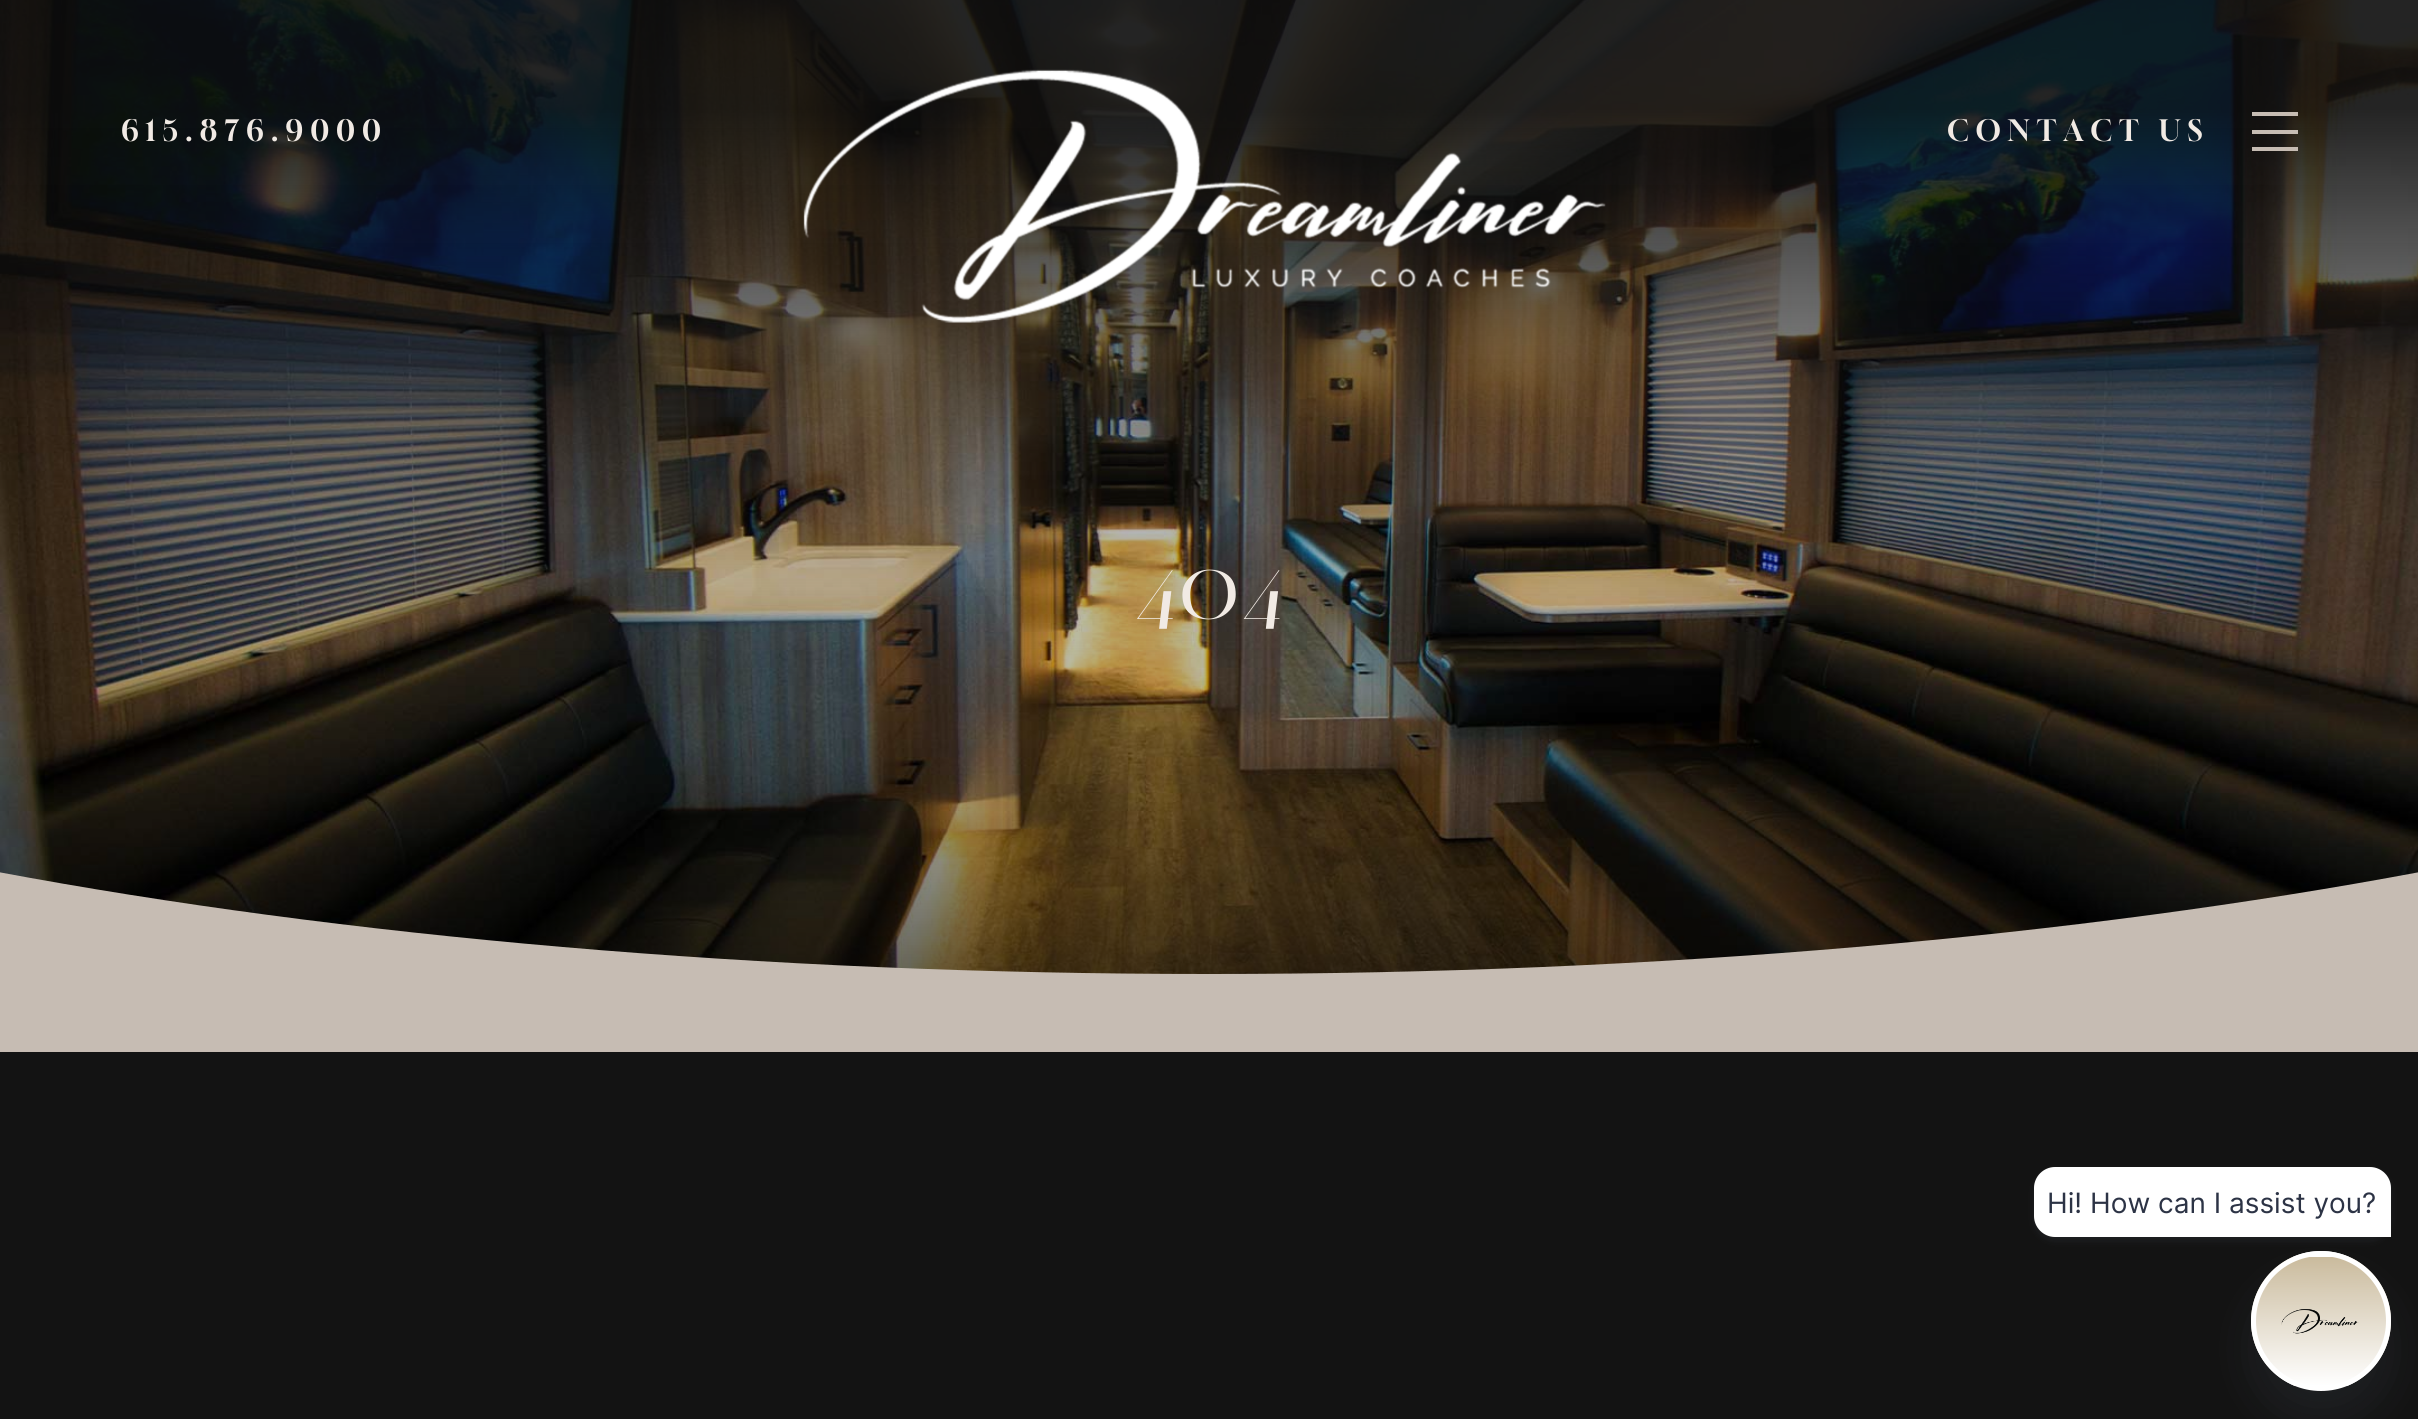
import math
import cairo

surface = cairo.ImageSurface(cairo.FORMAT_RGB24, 2418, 1419)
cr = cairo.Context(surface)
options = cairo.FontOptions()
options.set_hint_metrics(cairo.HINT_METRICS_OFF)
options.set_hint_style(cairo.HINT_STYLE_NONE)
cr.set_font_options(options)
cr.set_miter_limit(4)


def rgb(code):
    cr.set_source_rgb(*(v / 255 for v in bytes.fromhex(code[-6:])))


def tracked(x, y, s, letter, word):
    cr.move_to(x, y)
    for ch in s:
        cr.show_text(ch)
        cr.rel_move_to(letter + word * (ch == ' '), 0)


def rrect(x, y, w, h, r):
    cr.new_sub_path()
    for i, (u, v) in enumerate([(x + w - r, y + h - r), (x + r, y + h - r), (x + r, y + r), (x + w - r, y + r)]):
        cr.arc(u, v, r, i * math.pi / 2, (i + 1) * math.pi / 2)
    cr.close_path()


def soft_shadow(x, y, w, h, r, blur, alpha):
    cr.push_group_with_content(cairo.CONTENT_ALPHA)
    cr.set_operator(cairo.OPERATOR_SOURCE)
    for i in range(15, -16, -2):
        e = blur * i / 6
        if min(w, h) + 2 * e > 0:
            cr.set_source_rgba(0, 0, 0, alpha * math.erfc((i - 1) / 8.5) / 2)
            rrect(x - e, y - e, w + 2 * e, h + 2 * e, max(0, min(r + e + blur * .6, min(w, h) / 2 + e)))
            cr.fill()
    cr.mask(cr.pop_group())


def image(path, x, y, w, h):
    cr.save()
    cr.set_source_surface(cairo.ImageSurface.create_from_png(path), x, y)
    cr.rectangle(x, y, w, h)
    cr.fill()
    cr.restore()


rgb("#131313")
cr.paint()
image("img/2.png", 0, 0, 2418, 974)
image("img/1.png", 803, 69, 803, 254)
for x, y, w, h, color in [
    (2252, 112, 46, 4, "#c6bcb3"),
    (2252, 130, 46, 4, "#c6bcb3"),
    (2252, 147, 46, 4, "#c6bcb3"),
]:
    rgb(color)
    cr.rectangle(x, y, w, h)
    cr.fill()
cr.new_path()
cr.move_to(-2, 872)
cr.line_to(-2, 1052)
cr.line_to(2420, 1052)
cr.line_to(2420, 872)
cr.curve_to(2079, 936, 1661, 974, 1209, 974)
cr.curve_to(758, 974, 340, 936, -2, 872)
cr.close_path()
cr.fill()
rgb("#545f6f")
soft_shadow(2034, 1171, 357, 70, 21, 3.5, 0.16)
rgb("#ffffff")
cr.new_path()
cr.move_to(2055, 1167)
cr.line_to(2370, 1167)
cr.curve_to(2381.5, 1167, 2391, 1176.5, 2391, 1188)
cr.line_to(2391, 1237)
cr.line_to(2055, 1237)
cr.curve_to(2043.5, 1237, 2034, 1227.5, 2034, 1216)
cr.line_to(2034, 1188)
cr.curve_to(2034, 1176.5, 2043.5, 1167, 2055, 1167)
cr.close_path()
cr.fill()
rgb("#545f6f")
soft_shadow(2251, 1279, 140, 140, 70, 21, 0.16)
cr.save()
rrect(2251, 1251, 140, 140, 70)
cr.clip()
gradient = cairo.LinearGradient(2321, 1127, 2321, 1257)
gradient.add_color_stop_rgba(0, 0.792, 0.733, 0.616, 1)
gradient.add_color_stop_rgba(1, 1, 1, 1, 1)
cr.set_source(gradient)
cr.rectangle(2292, 1251, 58, 6)
cr.fill()
gradient = cairo.LinearGradient(2321, 1257, 2321, 1386)
gradient.add_color_stop_rgba(0, 0.792, 0.733, 0.616, 1)
gradient.add_color_stop_rgba(1, 1, 1, 1, 1)
cr.set_source(gradient)
cr.rectangle(2251, 1257, 140, 129)
cr.fill()
cr.restore()
cr.arc(2321, 1321, 67.5, 0, 2 * math.pi)
rgb("#ffffff")
cr.set_line_width(5)
cr.stroke()
image("img/3.png", 2281, 1309, 78, 25)
cr.select_font_face("Gloock")
cr.set_font_size(28.9)
rgb("#f1eae4")
tracked(121, 141, "615.876.9000", 7, 0)
tracked(1947, 141, "CONTACT US", 7, 0)
cr.select_font_face("Italiana")
cr.set_font_size(98)
cr.move_to(1134, 619)
cr.show_text("404")
cr.select_font_face("Inter")
cr.set_font_size(28)
rgb("#2c3345")
cr.move_to(2047, 1213)
cr.show_text("Hi! How can I assist you?")
surface.write_to_png("page.png")
